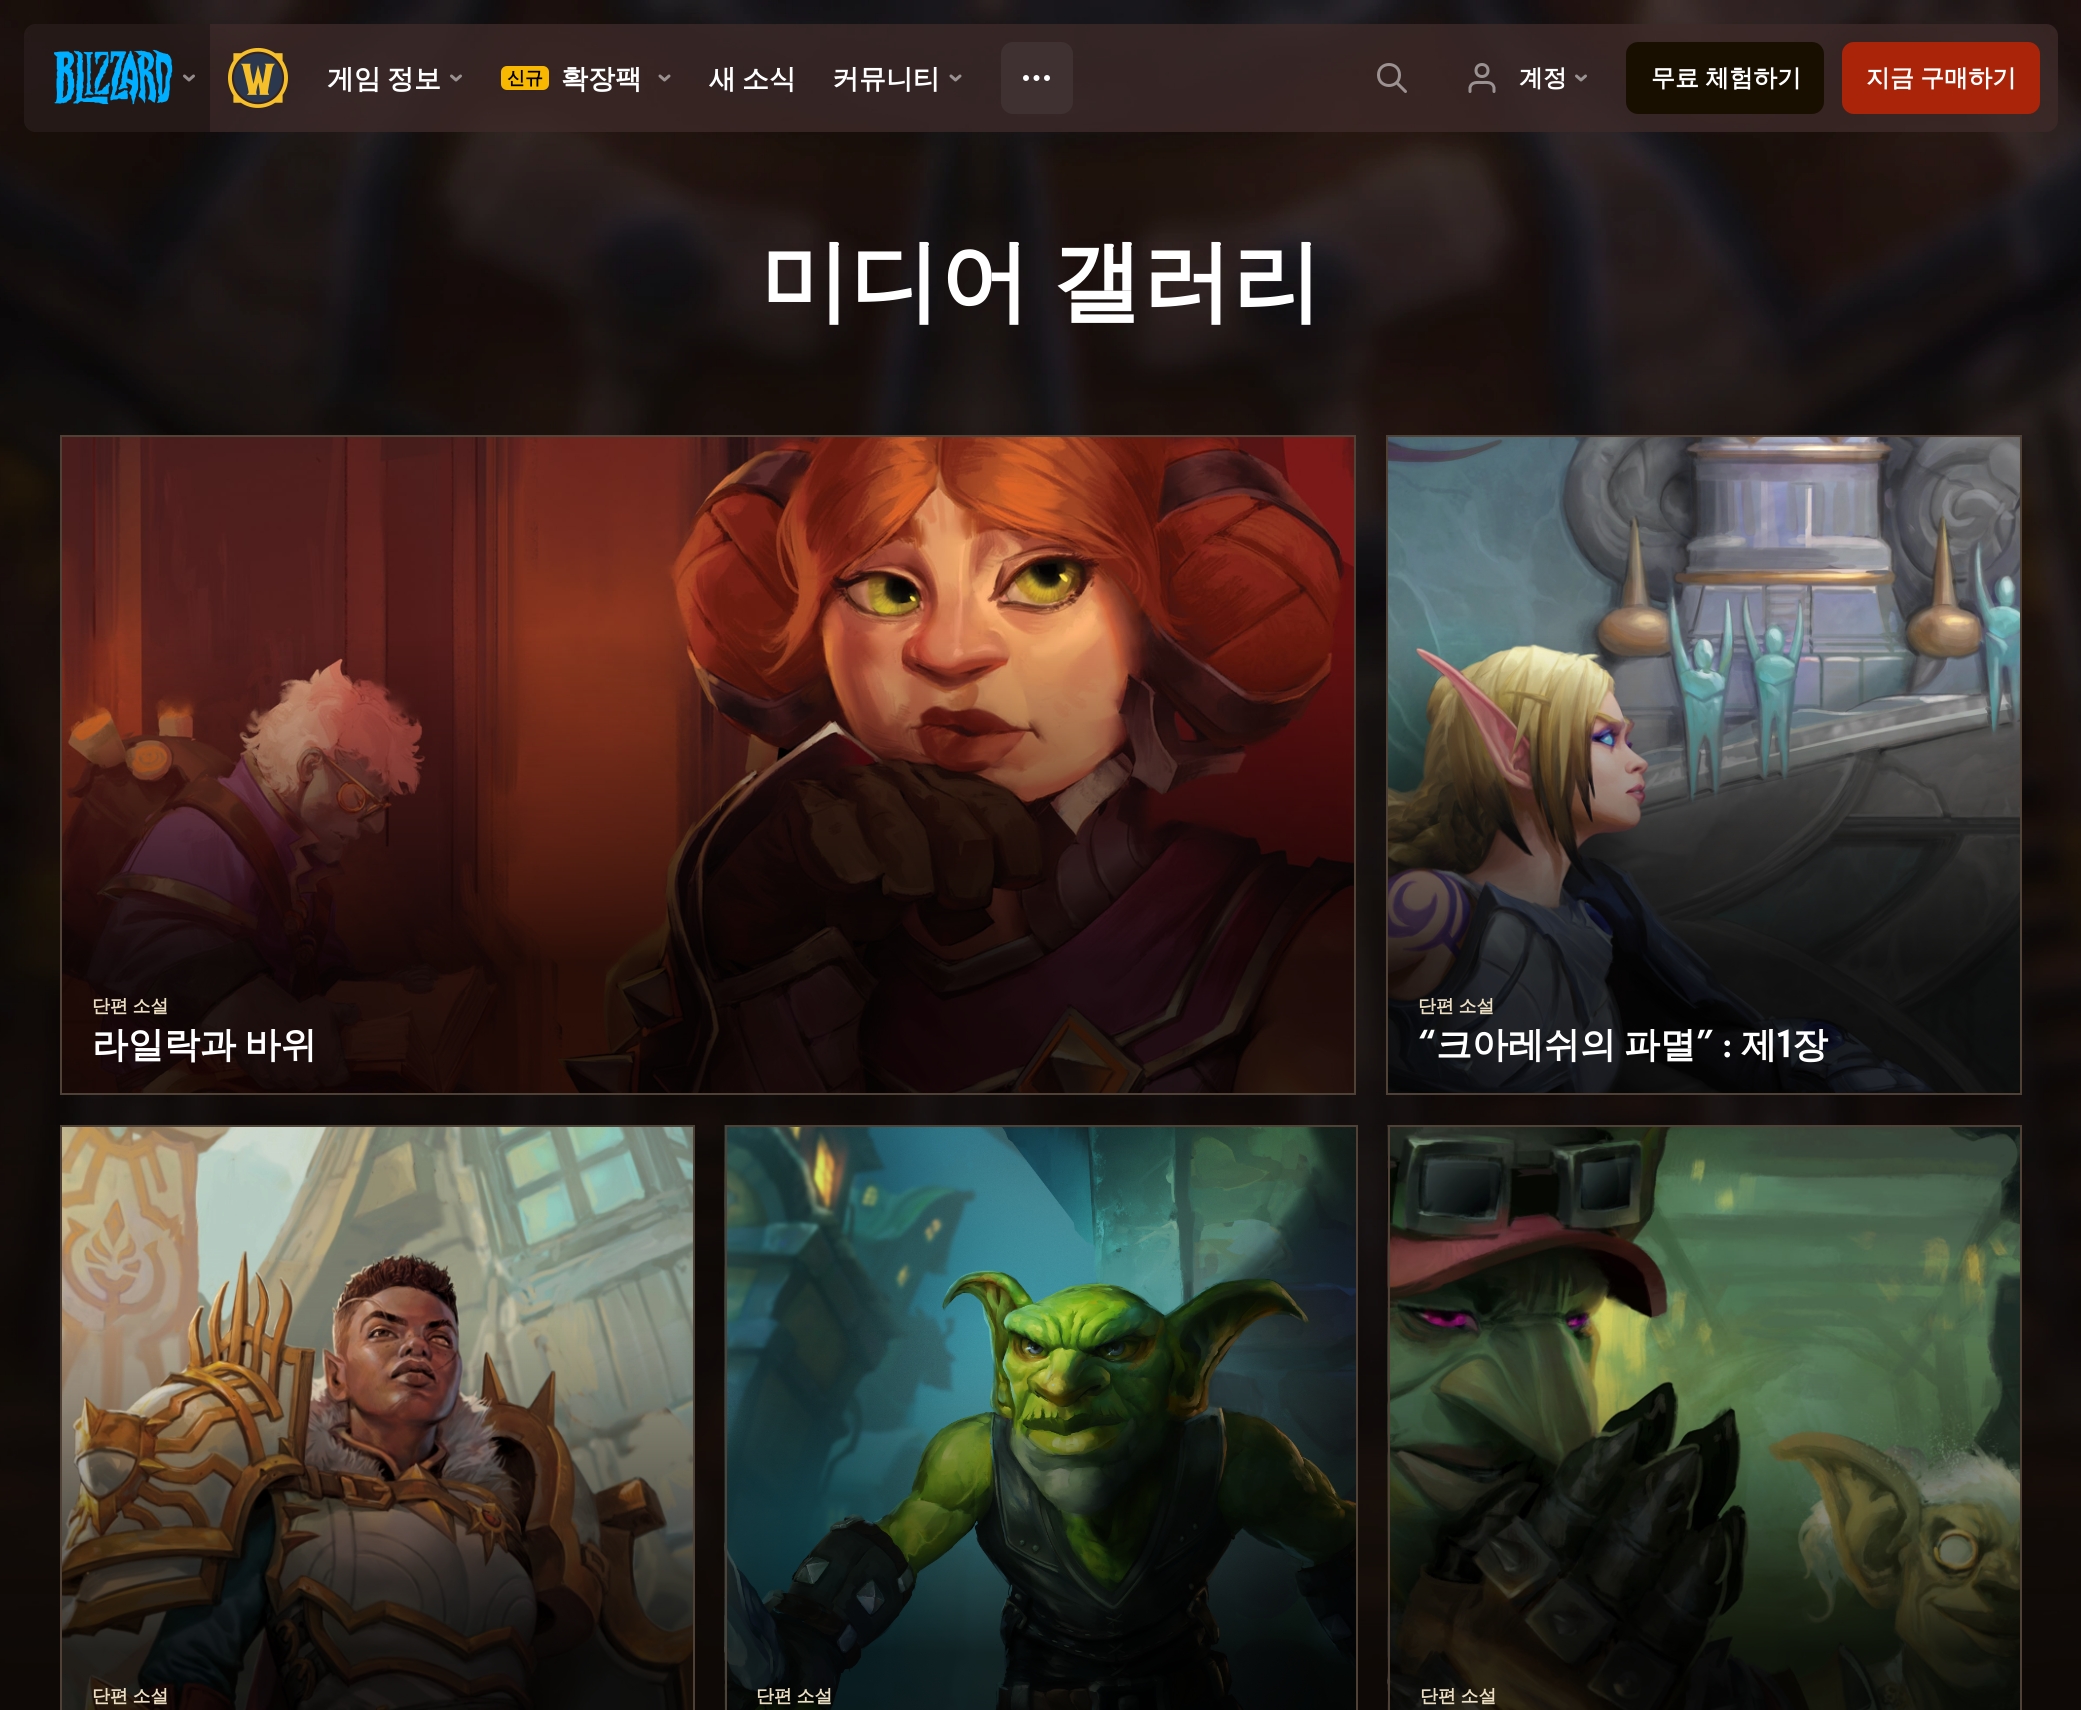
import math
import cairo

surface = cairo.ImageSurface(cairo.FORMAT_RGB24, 2081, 1710)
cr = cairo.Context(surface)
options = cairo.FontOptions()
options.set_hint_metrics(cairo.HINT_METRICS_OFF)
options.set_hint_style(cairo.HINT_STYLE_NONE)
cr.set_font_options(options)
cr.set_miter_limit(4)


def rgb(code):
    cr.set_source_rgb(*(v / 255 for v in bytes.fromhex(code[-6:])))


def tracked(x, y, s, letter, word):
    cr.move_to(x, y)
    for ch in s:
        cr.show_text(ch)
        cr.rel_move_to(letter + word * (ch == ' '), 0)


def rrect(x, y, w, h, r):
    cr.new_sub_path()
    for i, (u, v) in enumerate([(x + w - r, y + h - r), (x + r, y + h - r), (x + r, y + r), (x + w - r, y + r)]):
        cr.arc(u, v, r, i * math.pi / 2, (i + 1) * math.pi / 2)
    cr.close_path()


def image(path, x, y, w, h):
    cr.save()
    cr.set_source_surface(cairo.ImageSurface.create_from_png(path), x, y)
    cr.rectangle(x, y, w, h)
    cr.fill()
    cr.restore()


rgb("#ffffff")
cr.paint()
image("img/4.png", 0, 0, 2081, 1710)
cr.set_source_rgba(0.235, 0.165, 0.161, 0.8)
rrect(24, 24, 2034, 108, 12)
cr.fill()
cr.set_source_rgba(0, 0, 0, 0.3)
cr.new_path()
cr.move_to(36, 24)
cr.line_to(210, 24)
cr.line_to(210, 132)
cr.line_to(36, 132)
cr.curve_to(29.5, 132, 24, 126.5, 24, 120)
cr.line_to(24, 36)
cr.curve_to(24, 29.5, 29.5, 24, 36, 24)
cr.close_path()
cr.fill()
image("img/1.png", 54, 49, 119, 56)
cr.new_path()
cr.move_to(184.5, 76)
cr.line_to(189, 80)
cr.line_to(193.5, 76)
rgb("#928c8c")
cr.set_line_width(3)
cr.set_line_cap(cairo.LINE_CAP_ROUND)
cr.set_line_join(cairo.LINE_JOIN_ROUND)
cr.stroke()
image("img/2.png", 228, 47, 60, 61)
cr.new_path()
cr.move_to(451.5, 76)
cr.line_to(456, 80)
cr.line_to(460.5, 76)
rgb("#9a9291")
cr.stroke()
rgb("#f8b700")
rrect(501, 66, 48, 24, 6)
cr.fill()
cr.new_path()
cr.move_to(660, 76)
cr.line_to(664.5, 80)
cr.line_to(669, 76)
rgb("#9a9291")
cr.stroke()
cr.new_path()
cr.move_to(951, 76)
cr.line_to(955.5, 80)
cr.line_to(960, 76)
rgb("#9a9292")
cr.stroke()
rgb("#3f3131")
rrect(1001, 42, 72, 72, 12)
cr.fill()
image("img/3.png", 1023, 75, 27, 6)
cr.new_path()
cr.move_to(1405.5, 91.5)
cr.line_to(1396.5, 82.5)
cr.move_to(1399.5, 75)
cr.curve_to(1399.5, 89, 1378.5, 89, 1378.5, 75)
cr.curve_to(1378.5, 61, 1399.5, 61, 1399.5, 75)
rgb("#9b9291")
cr.stroke()
cr.new_path()
cr.move_to(1494, 91.5)
cr.line_to(1494, 87.5)
cr.curve_to(1492.5, 81.5, 1486.5, 82.5, 1482, 82.5)
cr.curve_to(1477.5, 82.5, 1471.5, 81.5, 1470, 87.5)
cr.line_to(1470, 91.5)
cr.move_to(1488, 70.5)
cr.curve_to(1488, 78.5, 1476, 78.5, 1476, 70.5)
cr.curve_to(1476, 62.5, 1488, 62.5, 1488, 70.5)
rgb("#9a9292")
cr.stroke()
cr.new_path()
cr.move_to(1576.5, 76)
cr.line_to(1581, 80)
cr.line_to(1585.5, 76)
rgb("#9a9393")
cr.stroke()
rgb("#180f01")
rrect(1626, 42, 198, 72, 12)
cr.fill()
rgb("#aa2409")
rrect(1842, 42, 198, 72, 12)
cr.fill()
image("img/5.png", 62, 437, 1292, 656)
cr.rectangle(61, 436, 1294, 658)
rgb("#504137")
cr.set_line_width(2)
cr.set_line_cap(cairo.LINE_CAP_BUTT)
cr.set_line_join(cairo.LINE_JOIN_MITER)
cr.stroke()
image("img/6.png", 1388, 437, 632, 656)
cr.rectangle(1387, 436, 634, 658)
cr.stroke()
image("img/7.png", 62, 1127, 631, 583)
cr.rectangle(61, 1126, 633, 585)
cr.stroke()
image("img/8.png", 724, 1125, 632, 585)
cr.rectangle(726, 1126, 631, 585)
cr.stroke()
image("img/9.png", 1387, 1125, 633, 585)
cr.rectangle(1389, 1126, 632, 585)
cr.stroke()
cr.select_font_face("WenQuanYi Zen Hei", cairo.FONT_SLANT_NORMAL, cairo.FONT_WEIGHT_BOLD)
cr.set_font_size(27)
rgb("#ffffff")
tracked(327, 88, "게임 정보", 0, -2)
cr.set_font_size(18)
rgb("#000000")
cr.move_to(507, 84)
cr.show_text("신규")
cr.set_font_size(27)
rgb("#ffffff")
cr.move_to(561, 88)
cr.show_text("확장팩")
tracked(709, 88, "새 소식", 0, -2)
cr.move_to(832, 88)
cr.show_text("커뮤니티")
cr.set_font_size(24)
cr.move_to(1519, 86)
cr.show_text("계정")
tracked(1651, 86, "무료 체험하기", 0, -1)
tracked(1866, 86, "지금 구매하기", 0, -1)
cr.set_font_size(90)
tracked(760, 312, "미디어 갤러리", 0, -5)
cr.set_font_size(18)
rgb("#ebdec2")
tracked(92, 1012, "단편 소설", 0, -1)
cr.set_font_size(36)
rgb("#ffffff")
tracked(92, 1057, "라일락과 바위", 0, -2)
cr.set_font_size(18)
rgb("#ebdec2")
tracked(1418, 1012, "단편 소설", 0, -1)
cr.select_font_face("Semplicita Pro", cairo.FONT_SLANT_NORMAL, cairo.FONT_WEIGHT_BOLD)
cr.set_font_size(36)
rgb("#ffffff")
cr.move_to(1418, 1057)
cr.show_text("“")
cr.select_font_face("WenQuanYi Zen Hei", cairo.FONT_SLANT_NORMAL, cairo.FONT_WEIGHT_BOLD)
cr.move_to(1436, 1057)
cr.show_text("크아레쉬의")
cr.move_to(1624, 1057)
cr.show_text("파멸")
cr.select_font_face("Semplicita Pro", cairo.FONT_SLANT_NORMAL, cairo.FONT_WEIGHT_BOLD)
cr.move_to(1696, 1057)
cr.show_text("” :")
cr.select_font_face("WenQuanYi Zen Hei", cairo.FONT_SLANT_NORMAL, cairo.FONT_WEIGHT_BOLD)
cr.move_to(1741, 1057)
cr.show_text("제")
cr.select_font_face("Semplicita Pro", cairo.FONT_SLANT_NORMAL, cairo.FONT_WEIGHT_BOLD)
cr.move_to(1777, 1057)
cr.show_text("1")
cr.select_font_face("WenQuanYi Zen Hei", cairo.FONT_SLANT_NORMAL, cairo.FONT_WEIGHT_BOLD)
cr.move_to(1792, 1057)
cr.show_text("장")
cr.set_font_size(18)
rgb("#ebdec2")
for x, y, s in [
    (92, 1702, "단편 소설"),
    (756, 1702, "단편 소설"),
    (1420, 1702, "단편 소설"),
]:
    tracked(x, y, s, 0, -1)
surface.write_to_png("page.png")
